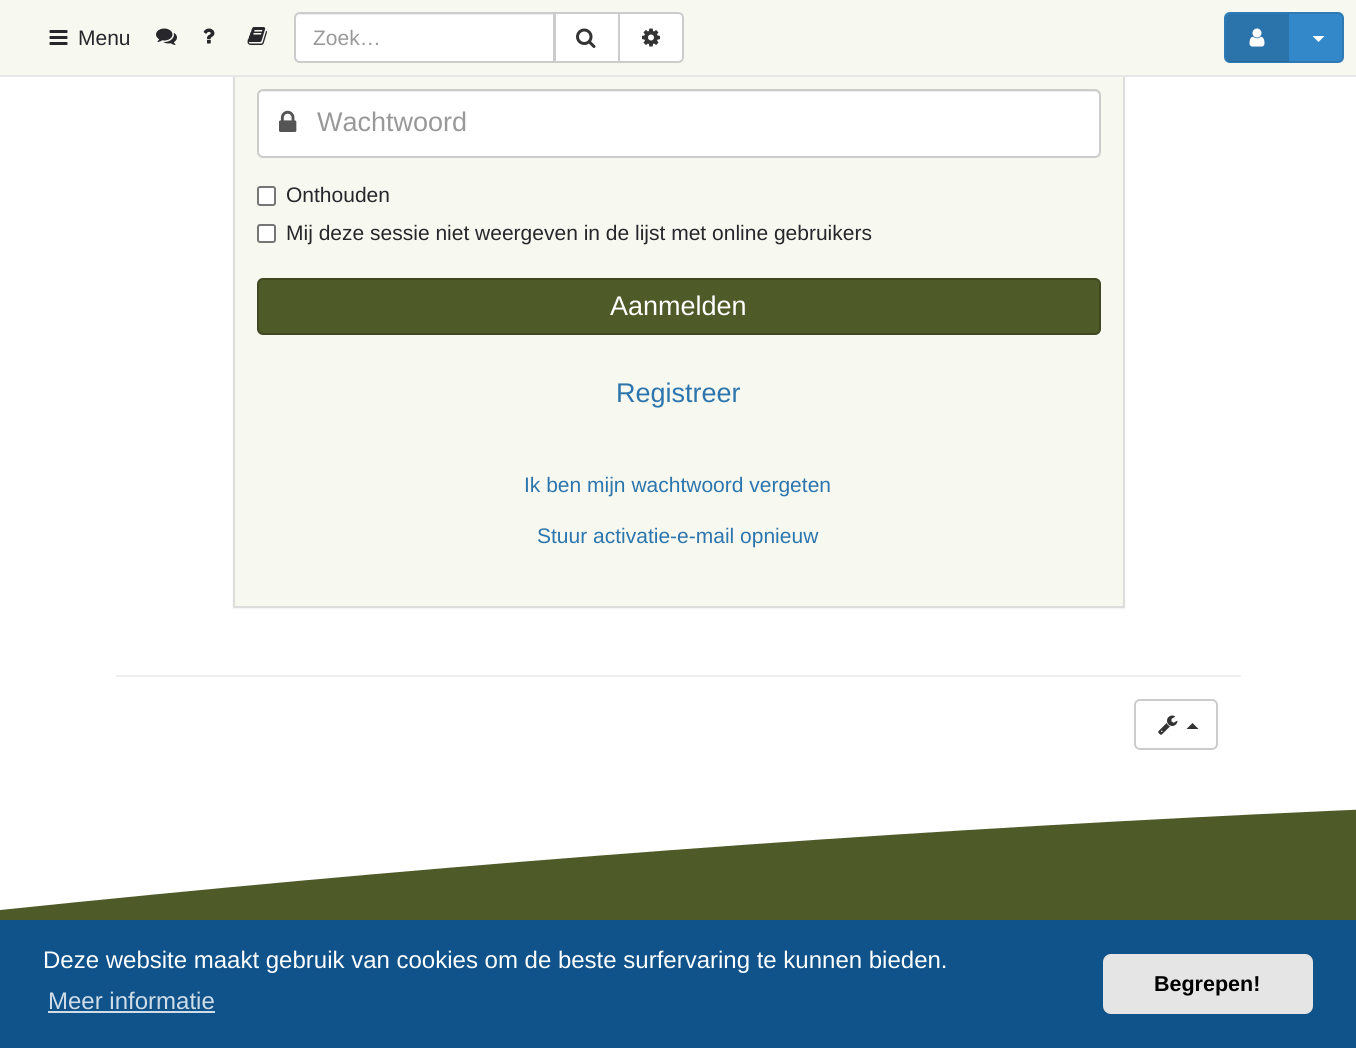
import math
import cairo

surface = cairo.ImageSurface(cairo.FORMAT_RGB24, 1356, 1048)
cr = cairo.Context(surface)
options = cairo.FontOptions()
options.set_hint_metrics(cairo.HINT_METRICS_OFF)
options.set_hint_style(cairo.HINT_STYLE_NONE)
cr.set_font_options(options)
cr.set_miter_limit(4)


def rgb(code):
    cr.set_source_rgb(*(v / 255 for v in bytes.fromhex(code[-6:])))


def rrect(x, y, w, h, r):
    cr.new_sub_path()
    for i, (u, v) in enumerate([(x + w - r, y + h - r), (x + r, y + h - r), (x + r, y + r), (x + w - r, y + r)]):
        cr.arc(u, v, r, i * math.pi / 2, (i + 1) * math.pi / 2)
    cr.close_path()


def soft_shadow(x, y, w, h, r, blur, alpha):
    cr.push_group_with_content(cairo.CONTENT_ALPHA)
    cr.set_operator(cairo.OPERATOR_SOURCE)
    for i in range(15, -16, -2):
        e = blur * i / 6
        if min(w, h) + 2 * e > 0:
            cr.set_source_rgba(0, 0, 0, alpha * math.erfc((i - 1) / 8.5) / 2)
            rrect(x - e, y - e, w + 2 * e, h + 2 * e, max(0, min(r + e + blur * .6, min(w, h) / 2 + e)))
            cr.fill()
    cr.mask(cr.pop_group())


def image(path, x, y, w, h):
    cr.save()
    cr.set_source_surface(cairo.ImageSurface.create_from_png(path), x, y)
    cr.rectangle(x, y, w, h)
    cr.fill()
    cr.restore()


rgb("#ffffff")
cr.paint()
rgb("#000000")
soft_shadow(233, -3, 892, 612, 0, 1, 0.05)
rgb("#f7f9f1")
cr.rectangle(235, 77, 888, 529)
cr.fill()
cr.rectangle(234, -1, 890, 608)
rgb("#dddddd")
cr.stroke()
rgb("#f7f9f1")
cr.rectangle(0, 0, 1356, 75)
cr.fill()
rgb("#e7e7e7")
cr.rectangle(0, 75, 1356, 2)
cr.fill()
image("img/1.png", 49, 30, 19, 15)
image("img/2.png", 156, 28, 21, 17)
image("img/3.png", 203, 28, 12, 16)
image("img/4.png", 247, 27, 20, 18)
rgb("#ffffff")
cr.new_path()
cr.move_to(300, 12)
cr.line_to(555, 12)
cr.line_to(555, 63)
cr.line_to(300, 63)
cr.curve_to(296.5, 63, 294, 60.5, 294, 57)
cr.line_to(294, 18)
cr.curve_to(294, 14.5, 296.5, 12, 300, 12)
cr.close_path()
cr.fill()
rgb("#ececec")
cr.new_path()
cr.move_to(300, 15)
cr.line_to(554, 15)
cr.line_to(554, 14)
cr.line_to(301, 14)
cr.curve_to(298, 14, 296, 17, 296, 20)
cr.curve_to(296, 17, 298, 15, 300, 15)
cr.close_path()
cr.fill()
cr.new_path()
cr.move_to(300, 13)
cr.line_to(554, 13)
cr.line_to(554, 62)
cr.line_to(300, 62)
cr.curve_to(297, 62, 295, 60, 295, 57)
cr.line_to(295, 18)
cr.curve_to(295, 15, 297, 13, 300, 13)
cr.close_path()
rgb("#cccccc")
cr.stroke()
rgb("#ffffff")
cr.rectangle(555, 13, 64, 49)
cr.fill_preserve()
rgb("#cccccc")
cr.stroke()
image("img/5.png", 576, 28, 20, 20)
rgb("#ffffff")
cr.new_path()
cr.move_to(619, 13)
cr.line_to(678, 13)
cr.curve_to(681, 13, 683, 15, 683, 18)
cr.line_to(683, 57)
cr.curve_to(683, 60, 681, 62, 678, 62)
cr.line_to(619, 62)
cr.close_path()
cr.fill_preserve()
rgb("#cccccc")
cr.stroke()
image("img/6.png", 642, 28, 18, 19)
rgb("#3388c9")
rrect(1225, 13, 118, 49, 5)
cr.fill_preserve()
rgb("#2e7ab5")
cr.stroke()
cr.set_source_rgba(0, 0, 0, 0.15)
cr.new_path()
cr.move_to(1231, 14)
cr.line_to(1289, 14)
cr.line_to(1289, 62)
cr.line_to(1231, 62)
cr.curve_to(1228, 62, 1226, 60, 1226, 57)
cr.line_to(1226, 19)
cr.curve_to(1226, 16, 1228, 14, 1231, 14)
cr.close_path()
cr.fill()
image("img/7.png", 1249, 28, 16, 19)
rgb("#ffffff")
cr.new_path()
cr.move_to(1312.5, 36)
cr.line_to(1324.5, 36)
cr.line_to(1318.5, 42)
cr.close_path()
cr.fill()
rrect(257, 89, 844, 69, 6)
cr.fill()
rgb("#ececec")
cr.new_path()
cr.move_to(262, 92)
cr.line_to(1095, 92)
cr.curve_to(1097, 92, 1100, 94, 1100, 96)
cr.line_to(1100, 95)
cr.curve_to(1100, 92, 1098, 90, 1095, 90)
cr.line_to(263, 90)
cr.curve_to(260, 90, 258, 92, 258, 95)
cr.line_to(258, 96)
cr.curve_to(258, 94, 260, 92, 262, 92)
cr.close_path()
cr.fill()
rrect(258, 90, 842, 67, 5)
rgb("#cccccc")
cr.stroke()
image("img/8.png", 279, 110, 18, 22)
rgb("#ffffff")
rrect(258, 187, 17, 18, 2)
cr.fill_preserve()
rgb("#767676")
cr.stroke()
rgb("#ffffff")
rrect(258, 225, 17, 17, 2)
cr.fill_preserve()
rgb("#767676")
cr.stroke()
rgb("#4f5a29")
rrect(258, 279, 842, 55, 5)
cr.fill_preserve()
rgb("#404821")
cr.stroke()
rgb("#eeeeee")
cr.rectangle(116, 675, 1125, 2)
cr.fill()
rrect(1135, 700, 82, 49, 5)
rgb("#cccccc")
cr.stroke()
image("img/9.png", 1158, 715, 20, 20)
rgb("#333333")
cr.new_path()
cr.move_to(1198.5, 729)
cr.line_to(1186.5, 729)
cr.line_to(1192.5, 723)
cr.close_path()
cr.fill()
rgb("#4f5a29")
cr.set_fill_rule(cairo.FILL_RULE_EVEN_ODD)
cr.new_path()
cr.move_to(0, 910)
cr.curve_to(798, 827, 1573, 788, 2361, 788)
cr.line_to(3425, 788)
cr.curve_to(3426, 788, 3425, 918, 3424, 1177)
cr.line_to(0, 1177)
cr.close_path()
cr.fill()
rgb("#0f538a")
cr.rectangle(0, 920, 1356, 128)
cr.fill()
rgb("#cfdde8")
cr.rectangle(48, 1011, 167, 2)
cr.fill()
rgb("#e5e5e5")
rrect(1103, 954, 210, 60, 8)
cr.fill()
cr.select_font_face("Liberation Sans")
cr.set_font_size(21)
rgb("#27262b")
cr.move_to(78, 45)
cr.show_text("Menu")
rgb("#999999")
cr.move_to(313, 45)
cr.show_text("Zoek…")
cr.set_font_size(27)
cr.move_to(317, 131)
cr.show_text("Wachtwoord")
cr.set_font_size(21)
rgb("#27262b")
cr.move_to(286, 202)
cr.show_text("Onthouden")
cr.move_to(286, 240)
cr.show_text("Mij deze sessie niet weergeven in de lijst met online gebruikers")
cr.set_font_size(27)
rgb("#ffffff")
cr.move_to(610, 315)
cr.show_text("Aanmelden")
rgb("#2c75ad")
cr.move_to(616, 402)
cr.show_text("Registreer")
cr.set_font_size(21)
cr.move_to(524, 492)
cr.show_text("Ik ben mijn wachtwoord vergeten")
cr.move_to(537, 543)
cr.show_text("Stuur activatie-e-mail opnieuw")
cr.set_font_size(24)
rgb("#ffffff")
cr.move_to(43, 968)
cr.show_text("Deze website maakt gebruik van cookies om de beste surfervaring te kunnen bieden.")
rgb("#cfdde8")
cr.move_to(48, 1009)
cr.show_text("Meer informatie")
cr.select_font_face("Liberation Sans", cairo.FONT_SLANT_NORMAL, cairo.FONT_WEIGHT_BOLD)
cr.set_font_size(21.5)
rgb("#000000")
cr.move_to(1154, 991)
cr.show_text("Begrepen!")
surface.write_to_png("page.png")
